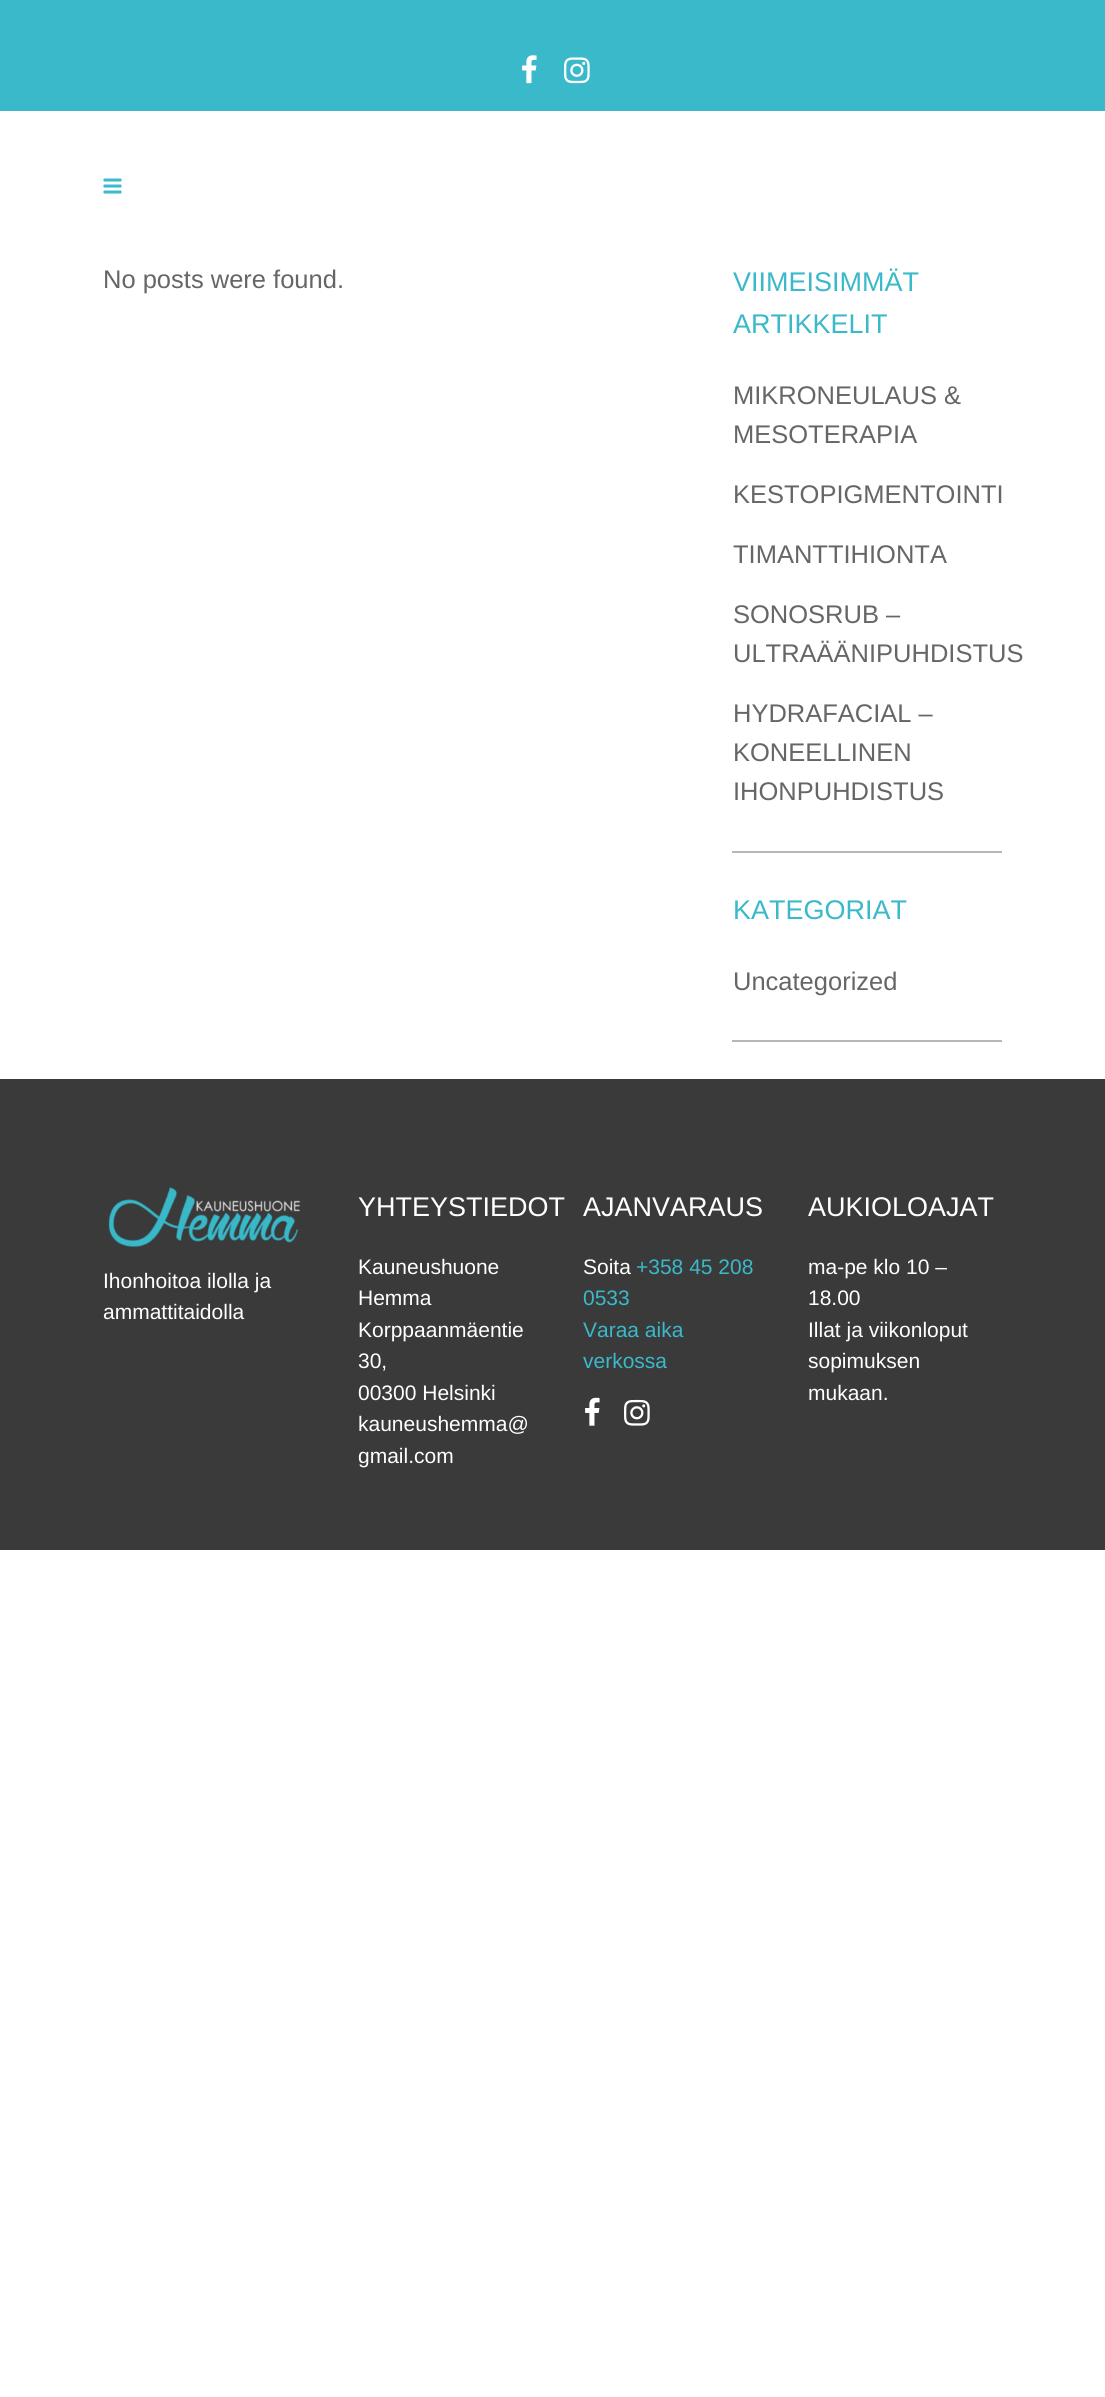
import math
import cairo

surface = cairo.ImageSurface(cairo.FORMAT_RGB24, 1105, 2397)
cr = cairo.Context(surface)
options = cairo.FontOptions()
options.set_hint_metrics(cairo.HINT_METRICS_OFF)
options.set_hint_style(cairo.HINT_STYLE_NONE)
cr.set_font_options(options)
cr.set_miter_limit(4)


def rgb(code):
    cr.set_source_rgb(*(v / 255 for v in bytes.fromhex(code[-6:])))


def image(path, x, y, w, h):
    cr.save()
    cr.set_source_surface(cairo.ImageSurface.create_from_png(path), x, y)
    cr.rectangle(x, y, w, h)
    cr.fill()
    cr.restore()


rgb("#ffffff")
cr.paint()
rgb("#39b9ca")
cr.rectangle(0, 0, 1105, 111)
cr.fill()
image("img/1.png", 522, 55, 15, 29)
image("img/2.png", 564, 57, 26, 27)
image("img/3.png", 103, 178, 19, 16)
for x, y, w, h, color in [
    (732, 851, 270, 2, "#b7b7b7"),
    (732, 1040, 270, 2, "#b7b7b7"),
    (0, 1079, 1105, 471, "#3a3a3a"),
]:
    rgb(color)
    cr.rectangle(x, y, w, h)
    cr.fill()
image("img/4.png", 108, 1187, 193, 60)
image("img/5.png", 585, 1397, 15, 29)
image("img/6.png", 624, 1399, 26, 27)
cr.select_font_face("Liberation Sans")
cr.set_font_size(25.5)
rgb("#666666")
cr.move_to(103, 288)
cr.show_text("No posts were found.")
cr.set_font_size(27)
rgb("#39b9ca")
cr.move_to(733, 291)
cr.show_text("VIIMEISIMMÄT")
cr.move_to(733, 333)
cr.show_text("ARTIKKELIT")
cr.set_font_size(25.5)
rgb("#666666")
for x, y, s in [
    (733, 404, "MIKRONEULAUS &"),
    (733, 443, "MESOTERAPIA"),
    (733, 503, "KESTOPIGMENTOINTI"),
    (733, 563, "TIMANTTIHIONTA"),
    (733, 623, "SONOSRUB –"),
    (733, 662, "ULTRAÄÄNIPUHDISTUS"),
    (733, 722, "HYDRAFACIAL –"),
    (733, 761, "KONEELLINEN"),
    (733, 800, "IHONPUHDISTUS"),
]:
    cr.move_to(x, y)
    cr.show_text(s)
cr.set_font_size(27)
rgb("#39b9ca")
cr.move_to(733, 919)
cr.show_text("KATEGORIAT")
cr.set_font_size(25.5)
rgb("#666666")
cr.move_to(733, 990)
cr.show_text("Uncategorized")
cr.set_font_size(21)
rgb("#ffffff")
cr.move_to(103, 1288)
cr.show_text("Ihonhoitoa ilolla ja")
cr.move_to(103, 1319)
cr.show_text("ammattitaidolla")
cr.set_font_size(27)
cr.move_to(358, 1216)
cr.show_text("YHTEYSTIEDOT")
cr.set_font_size(21)
for x, y, s in [
    (358, 1274, "Kauneushuone"),
    (358, 1305, "Hemma"),
    (358, 1337, "Korppaanmäentie"),
    (358, 1368, "30,"),
    (358, 1400, "00300 Helsinki"),
    (358, 1431, "kauneushemma@"),
    (358, 1463, "gmail.com"),
]:
    cr.move_to(x, y)
    cr.show_text(s)
cr.set_font_size(27)
cr.move_to(583, 1216)
cr.show_text("AJANVARAUS")
cr.set_font_size(21)
cr.move_to(583, 1274)
cr.show_text("Soita")
rgb("#39b9ca")
for x, y, s in [
    (636, 1274, "+358 45 208"),
    (583, 1305, "0533"),
    (583, 1337, "Varaa aika"),
    (583, 1368, "verkossa"),
]:
    cr.move_to(x, y)
    cr.show_text(s)
cr.set_font_size(27)
rgb("#ffffff")
cr.move_to(808, 1216)
cr.show_text("AUKIOLOAJAT")
cr.set_font_size(21)
for x, y, s in [
    (808, 1274, "ma-pe klo 10 –"),
    (808, 1305, "18.00"),
    (808, 1337, "Illat ja viikonloput"),
    (808, 1368, "sopimuksen"),
    (808, 1400, "mukaan."),
]:
    cr.move_to(x, y)
    cr.show_text(s)
surface.write_to_png("page.png")
